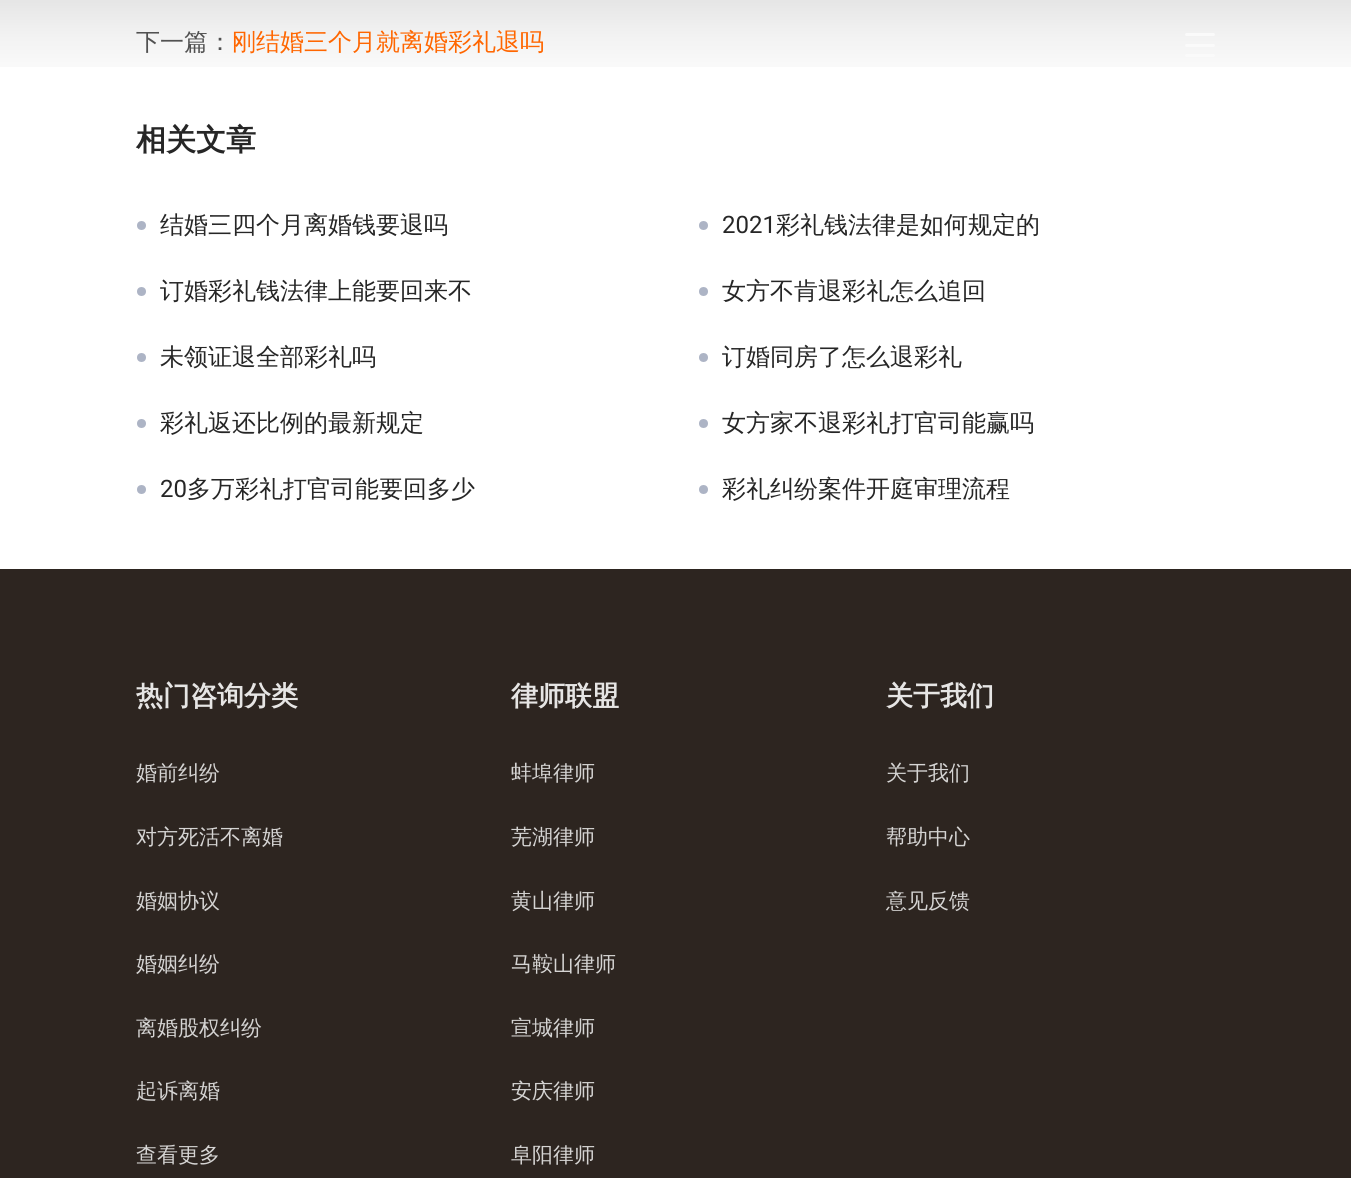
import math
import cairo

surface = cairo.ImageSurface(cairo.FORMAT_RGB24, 1351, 1178)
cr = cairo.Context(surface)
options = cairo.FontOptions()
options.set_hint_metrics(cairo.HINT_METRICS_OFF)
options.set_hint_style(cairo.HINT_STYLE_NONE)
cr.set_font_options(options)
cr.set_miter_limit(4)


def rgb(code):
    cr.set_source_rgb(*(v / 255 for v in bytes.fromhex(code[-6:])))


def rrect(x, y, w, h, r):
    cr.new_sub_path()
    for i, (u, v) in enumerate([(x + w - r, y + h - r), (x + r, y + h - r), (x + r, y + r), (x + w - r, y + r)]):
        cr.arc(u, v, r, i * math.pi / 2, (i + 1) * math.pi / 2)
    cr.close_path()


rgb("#ffffff")
cr.paint()
gradient = cairo.LinearGradient(676, 0, 676, 90)
gradient.add_color_stop_rgba(0, 0, 0, 0, 0.1)
gradient.add_color_stop_rgba(0.4, 0, 0, 0, 0.05)
gradient.add_color_stop_rgba(1, 0, 0, 0, 0)
cr.set_source(gradient)
cr.rectangle(0, 0, 1351, 67)
cr.fill()
rgb("#fafafa")
rrect(1185, 33, 30, 3, 1.5)
cr.fill()
rrect(1185, 44, 30, 3, 1.5)
cr.fill()
rrect(1185, 54, 30, 3, 1.5)
cr.fill()
rgb("#adb4c5")
cr.arc(141.5, 225.5, 4.5, 0, 2 * math.pi)
cr.fill()
cr.arc(703.5, 225.5, 4.5, 0, 2 * math.pi)
cr.fill()
cr.arc(141.5, 291.5, 4.5, 0, 2 * math.pi)
cr.fill()
cr.arc(703.5, 291.5, 4.5, 0, 2 * math.pi)
cr.fill()
cr.arc(141.5, 357.5, 4.5, 0, 2 * math.pi)
cr.fill()
cr.arc(703.5, 357.5, 4.5, 0, 2 * math.pi)
cr.fill()
cr.arc(141.5, 423.5, 4.5, 0, 2 * math.pi)
cr.fill()
cr.arc(703.5, 423.5, 4.5, 0, 2 * math.pi)
cr.fill()
cr.arc(141.5, 489.5, 4.5, 0, 2 * math.pi)
cr.fill()
cr.arc(703.5, 489.5, 4.5, 0, 2 * math.pi)
cr.fill()
rgb("#2d2520")
cr.rectangle(0, 569, 1351, 609)
cr.fill()
cr.select_font_face("WenQuanYi Zen Hei Medium")
cr.set_font_size(24)
rgb("#515151")
cr.move_to(136, 50)
cr.show_text("下一篇：")
rgb("#ff6600")
cr.move_to(232, 50)
cr.show_text("刚结婚三个月就离婚彩礼退吗")
cr.select_font_face("WenQuanYi Zen Hei", cairo.FONT_SLANT_NORMAL, cairo.FONT_WEIGHT_BOLD)
cr.set_font_size(30)
rgb("#262626")
cr.move_to(136, 150)
cr.show_text("相关文章")
cr.select_font_face("WenQuanYi Zen Hei Medium")
cr.set_font_size(24)
cr.move_to(160, 233)
cr.show_text("结婚三四个月离婚钱要退吗")
cr.select_font_face("Roboto")
cr.move_to(722, 233)
cr.show_text("2021")
cr.select_font_face("WenQuanYi Zen Hei Medium")
for x, y, s in [
    (776, 233, "彩礼钱法律是如何规定的"),
    (160, 299, "订婚彩礼钱法律上能要回来不"),
    (722, 299, "女方不肯退彩礼怎么追回"),
    (160, 365, "未领证退全部彩礼吗"),
    (722, 365, "订婚同房了怎么退彩礼"),
    (160, 431, "彩礼返还比例的最新规定"),
    (722, 431, "女方家不退彩礼打官司能赢吗"),
]:
    cr.move_to(x, y)
    cr.show_text(s)
cr.select_font_face("Roboto")
cr.move_to(160, 497)
cr.show_text("20")
cr.select_font_face("WenQuanYi Zen Hei Medium")
cr.move_to(187, 497)
cr.show_text("多万彩礼打官司能要回多少")
cr.move_to(722, 497)
cr.show_text("彩礼纠纷案件开庭审理流程")
cr.select_font_face("WenQuanYi Zen Hei", cairo.FONT_SLANT_NORMAL, cairo.FONT_WEIGHT_BOLD)
cr.set_font_size(27)
rgb("#e6e5e4")
cr.move_to(136, 705)
cr.show_text("热门咨询分类")
cr.select_font_face("WenQuanYi Zen Hei Medium")
cr.set_font_size(21)
rgb("#d5d4d3")
for x, y, s in [
    (136, 780, "婚前纠纷"),
    (136, 844, "对方死活不离婚"),
    (136, 908, "婚姻协议"),
    (136, 971, "婚姻纠纷"),
    (136, 1035, "离婚股权纠纷"),
    (136, 1098, "起诉离婚"),
    (136, 1162, "查看更多"),
]:
    cr.move_to(x, y)
    cr.show_text(s)
cr.select_font_face("WenQuanYi Zen Hei", cairo.FONT_SLANT_NORMAL, cairo.FONT_WEIGHT_BOLD)
cr.set_font_size(27)
rgb("#e6e5e4")
cr.move_to(511, 705)
cr.show_text("律师联盟")
cr.select_font_face("WenQuanYi Zen Hei Medium")
cr.set_font_size(21)
rgb("#d5d4d3")
for x, y, s in [
    (511, 780, "蚌埠律师"),
    (511, 844, "芜湖律师"),
    (511, 908, "黄山律师"),
    (511, 971, "马鞍山律师"),
    (511, 1035, "宣城律师"),
    (511, 1098, "安庆律师"),
    (511, 1162, "阜阳律师"),
]:
    cr.move_to(x, y)
    cr.show_text(s)
cr.select_font_face("WenQuanYi Zen Hei", cairo.FONT_SLANT_NORMAL, cairo.FONT_WEIGHT_BOLD)
cr.set_font_size(27)
rgb("#e6e5e4")
cr.move_to(886, 705)
cr.show_text("关于我们")
cr.select_font_face("WenQuanYi Zen Hei Medium")
cr.set_font_size(21)
rgb("#d5d4d3")
for x, y, s in [
    (886, 780, "关于我们"),
    (886, 844, "帮助中心"),
    (886, 908, "意见反馈"),
]:
    cr.move_to(x, y)
    cr.show_text(s)
surface.write_to_png("page.png")
